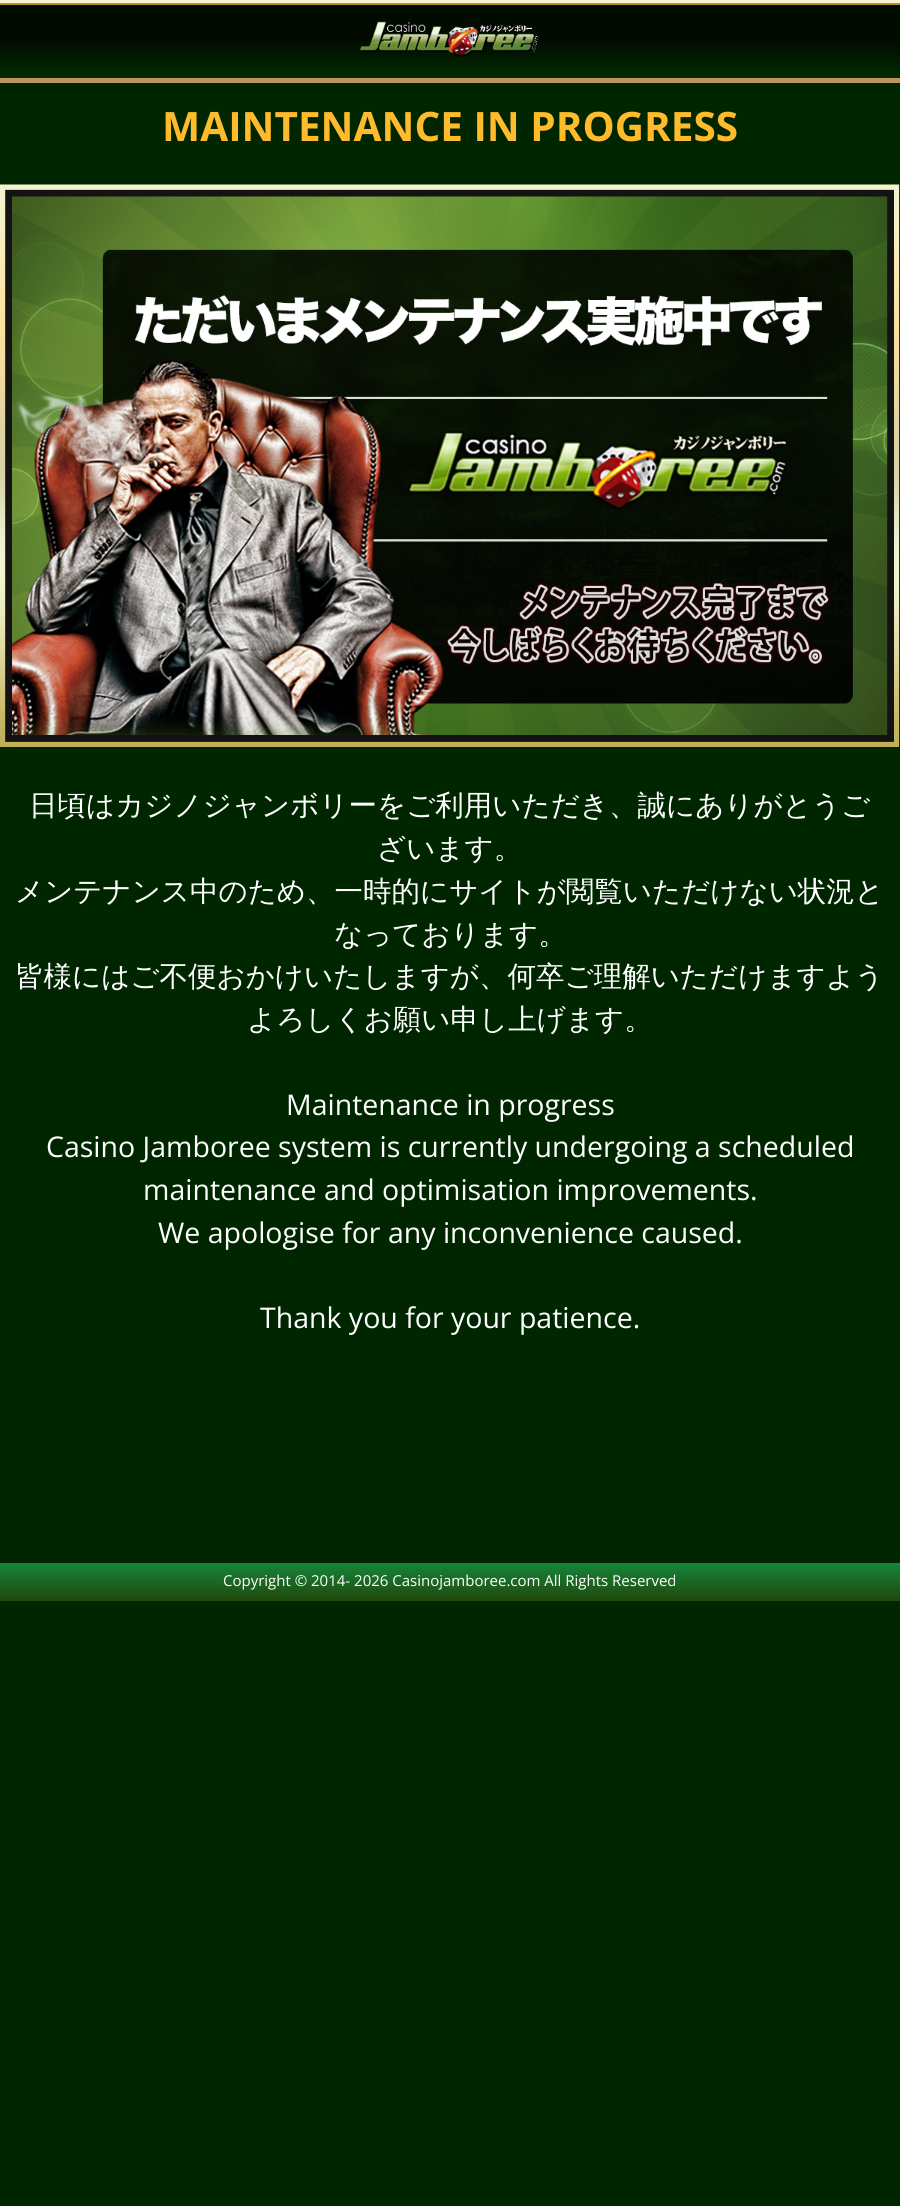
import math
import cairo

surface = cairo.ImageSurface(cairo.FORMAT_RGB24, 900, 2206)
cr = cairo.Context(surface)
options = cairo.FontOptions()
options.set_hint_metrics(cairo.HINT_METRICS_OFF)
options.set_hint_style(cairo.HINT_STYLE_NONE)
cr.set_font_options(options)
cr.set_miter_limit(4)


def rgb(code):
    cr.set_source_rgb(*(v / 255 for v in bytes.fromhex(code[-6:])))


def image(path, x, y, w, h):
    cr.save()
    cr.set_source_surface(cairo.ImageSurface.create_from_png(path), x, y)
    cr.rectangle(x, y, w, h)
    cr.fill()
    cr.restore()


rgb("#002600")
cr.paint()
gradient = cairo.LinearGradient(450, 0, 450, 78)
gradient.add_color_stop_rgba(0, 0.008, 0.043, 0, 1)
gradient.add_color_stop_rgba(0.5, 0.008, 0.043, 0, 1)
gradient.add_color_stop_rgba(1, 0, 0.176, 0, 1)
cr.set_source(gradient)
cr.rectangle(0, 5, 900, 73)
cr.fill()
rgb("#f8f3d6")
cr.rectangle(0, 0, 900, 3)
cr.fill()
rgb("#b2902e")
cr.rectangle(0, 3, 900, 2)
cr.fill()
image("img/1.png", 360, 21, 180, 36)
rgb("#bf965e")
cr.rectangle(0, 78, 900, 5)
cr.fill()
image("img/2.png", 0, 184, 900, 563)
gradient = cairo.LinearGradient(450, 1563, 450, 1601)
gradient.add_color_stop_rgba(0, 0.086, 0.522, 0.224, 1)
gradient.add_color_stop_rgba(1, 0.125, 0.282, 0.047, 1)
cr.set_source(gradient)
cr.rectangle(0, 1563, 900, 38)
cr.fill()
cr.select_font_face("Open Sans", cairo.FONT_SLANT_NORMAL, cairo.FONT_WEIGHT_BOLD)
cr.set_font_size(40.5)
rgb("#ffbb2c")
cr.move_to(162, 141)
cr.show_text("MAINTENANCE IN PROGRESS")
cr.select_font_face("WenQuanYi Zen Hei Medium")
cr.set_font_size(28.5)
rgb("#ffffff")
for x, y, s in [
    (29, 815, "日頃はカジノジャンボリーをご利用いただき、誠にありがとうご"),
    (377, 858, "ざいます。"),
    (15, 901, "メンテナンス中のため、一時的にサイトが閲覧いただけない状況と"),
    (334, 944, "なっております。"),
    (15, 986, "皆様にはご不便おかけいたしますが、何卒ご理解いただけますよう"),
    (247, 1029, "よろしくお願い申し上げます。"),
]:
    cr.move_to(x, y)
    cr.show_text(s)
cr.select_font_face("Open Sans")
for x, y, s in [
    (286, 1115, "Maintenance in progress"),
    (46, 1157, "Casino Jamboree system is currently undergoing a scheduled"),
    (143, 1200, "maintenance and optimisation improvements."),
    (158, 1243, "We apologise for any inconvenience caused."),
    (260, 1328, "Thank you for your patience."),
]:
    cr.move_to(x, y)
    cr.show_text(s)
cr.set_font_size(15)
cr.move_to(223, 1586)
cr.show_text("Copyright © 2014- 2026 Casinojamboree.com All Rights Reserved")
surface.write_to_png("page.png")
